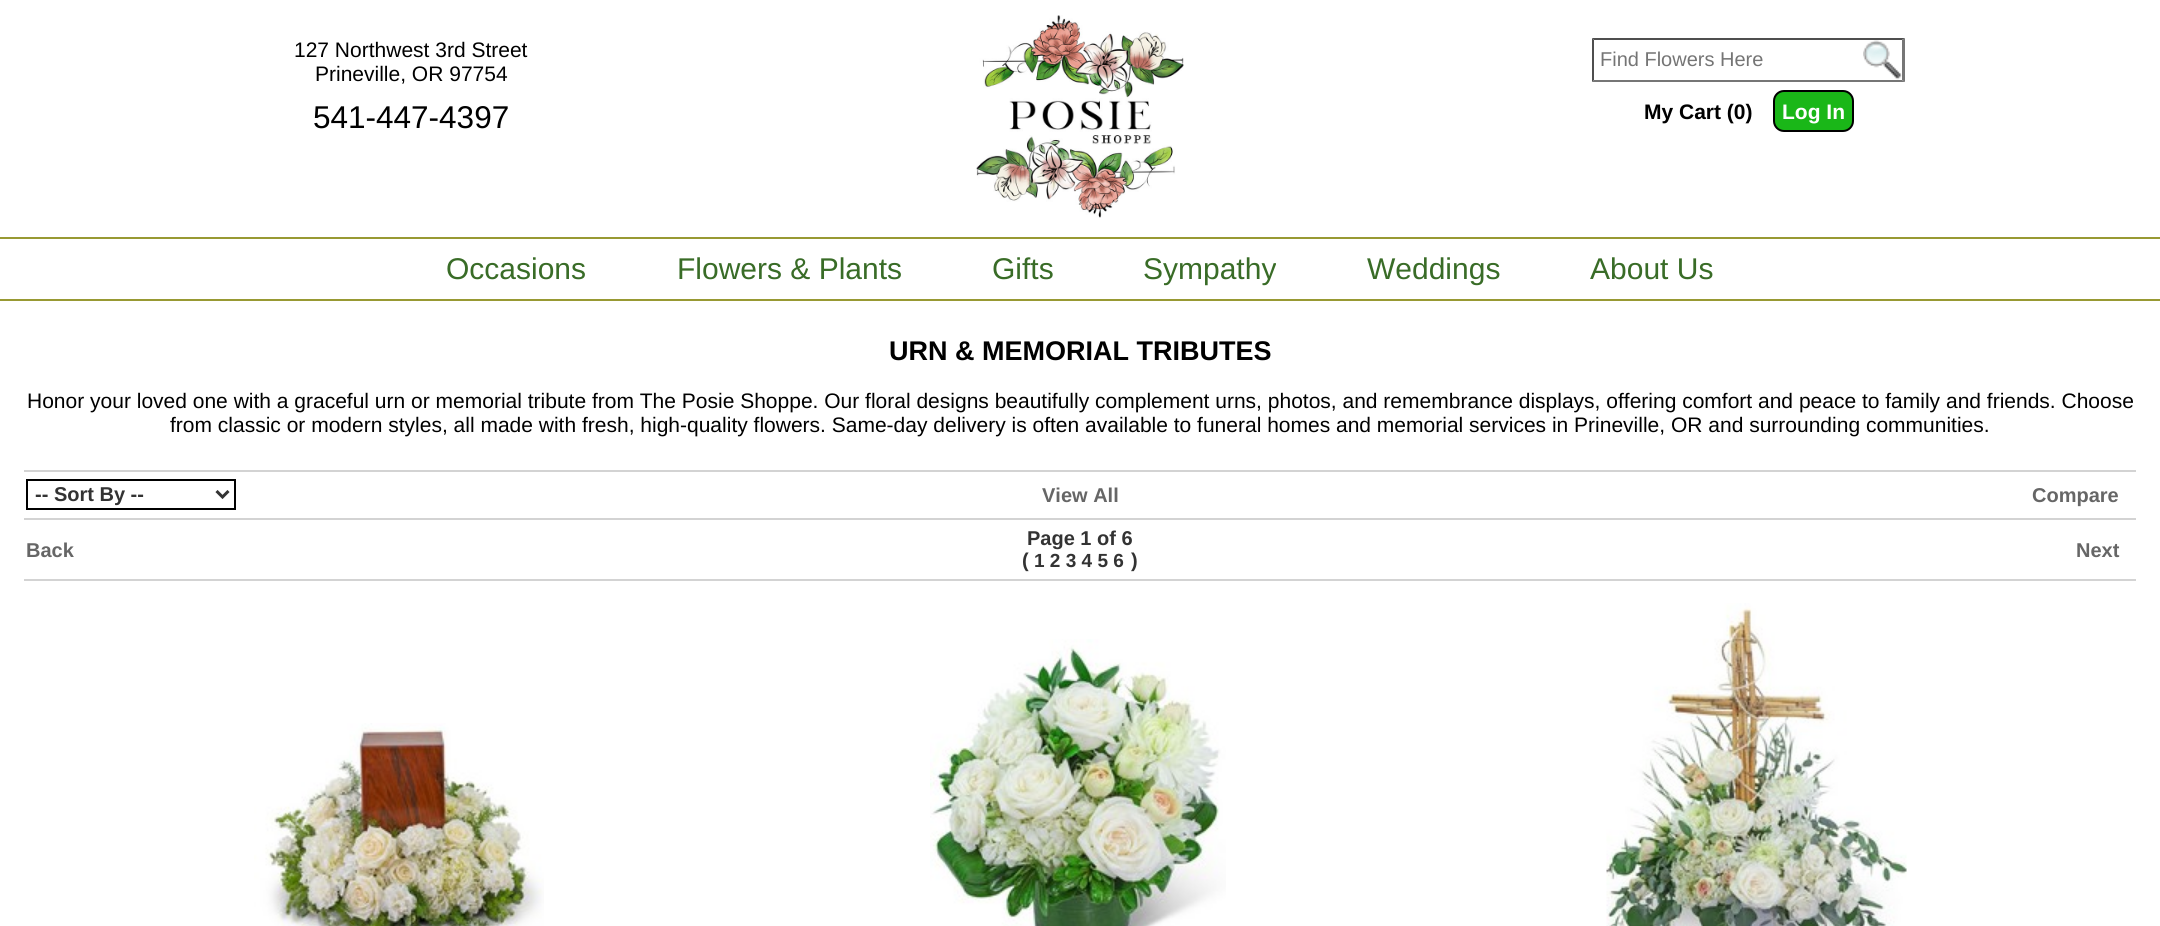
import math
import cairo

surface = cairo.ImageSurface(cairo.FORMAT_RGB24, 2160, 926)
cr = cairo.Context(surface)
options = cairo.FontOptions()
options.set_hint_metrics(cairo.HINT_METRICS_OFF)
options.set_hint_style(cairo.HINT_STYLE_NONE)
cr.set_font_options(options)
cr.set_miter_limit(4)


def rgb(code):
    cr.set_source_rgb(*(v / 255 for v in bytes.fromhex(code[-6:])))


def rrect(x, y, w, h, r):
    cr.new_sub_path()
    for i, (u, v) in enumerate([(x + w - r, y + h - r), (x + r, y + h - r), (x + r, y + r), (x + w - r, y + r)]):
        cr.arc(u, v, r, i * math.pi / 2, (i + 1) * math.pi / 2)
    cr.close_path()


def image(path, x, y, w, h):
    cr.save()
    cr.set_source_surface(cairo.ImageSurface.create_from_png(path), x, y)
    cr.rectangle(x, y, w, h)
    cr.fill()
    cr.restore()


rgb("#ffffff")
cr.paint()
image("img/1.png", 976, 15, 208, 203)
image("img/2.png", 1863, 40, 39, 40)
rgb("#4f4f4f")
cr.new_path()
cr.move_to(1592, 38)
cr.line_to(1905, 38)
cr.line_to(1902, 40)
cr.line_to(1594, 40)
cr.close_path()
cr.fill()
rgb("#767676")
cr.new_path()
cr.move_to(1905, 38)
cr.line_to(1905, 82)
cr.line_to(1902, 80)
cr.line_to(1902, 40)
cr.close_path()
cr.fill()
cr.new_path()
cr.move_to(1905, 82)
cr.line_to(1592, 82)
cr.line_to(1594, 80)
cr.line_to(1902, 80)
cr.close_path()
cr.fill()
rgb("#4f4f4f")
cr.new_path()
cr.move_to(1592, 82)
cr.line_to(1592, 38)
cr.line_to(1594, 40)
cr.line_to(1594, 80)
cr.close_path()
cr.fill()
rgb("#1ab718")
rrect(1774, 91, 79, 40, 10)
cr.fill_preserve()
rgb("#000000")
cr.stroke()
for x, y, w, h, color in [
    (0, 237, 2160, 2, "#989933"),
    (0, 299, 2160, 2, "#989933"),
    (24, 470, 2112, 2, "#d3d3d3"),
]:
    rgb(color)
    cr.rectangle(x, y, w, h)
    cr.fill()
cr.rectangle(27, 480, 208, 29)
rgb("#000000")
cr.stroke()
cr.new_path()
cr.move_to(216.5, 491)
cr.line_to(222.5, 497)
cr.line_to(228.5, 491)
rgb("#333333")
cr.set_line_width(3)
cr.stroke()
rgb("#d3d3d3")
cr.rectangle(24, 518, 2112, 2)
cr.fill()
cr.rectangle(24, 579, 2112, 2)
cr.fill()
image("img/3.png", 254, 723, 290, 203)
image("img/4.png", 930, 639, 296, 287)
image("img/5.png", 1606, 603, 301, 323)
cr.select_font_face("Liberation Sans")
cr.set_font_size(21)
rgb("#000000")
cr.move_to(294, 57)
cr.show_text("127 Northwest 3rd Street")
cr.move_to(315, 81)
cr.show_text("Prineville, OR 97754")
cr.set_font_size(31.5)
cr.move_to(313, 128)
cr.show_text("541-447-4397")
cr.set_font_size(20)
rgb("#757575")
cr.move_to(1600, 66)
cr.show_text("Find Flowers Here")
cr.select_font_face("Liberation Sans", cairo.FONT_SLANT_NORMAL, cairo.FONT_WEIGHT_BOLD)
cr.set_font_size(21)
rgb("#000000")
cr.move_to(1644, 119)
cr.show_text("My Cart (0)")
rgb("#ffffff")
cr.move_to(1782, 119)
cr.show_text("Log In")
cr.select_font_face("Liberation Sans")
cr.set_font_size(30)
rgb("#396c27")
for x, y, s in [
    (446, 279, "Occasions"),
    (677, 279, "Flowers & Plants"),
    (992, 279, "Gifts"),
    (1143, 279, "Sympathy"),
    (1367, 279, "Weddings"),
    (1590, 279, "About Us"),
]:
    cr.move_to(x, y)
    cr.show_text(s)
cr.select_font_face("Liberation Sans", cairo.FONT_SLANT_NORMAL, cairo.FONT_WEIGHT_BOLD)
cr.set_font_size(27)
rgb("#000000")
cr.move_to(889, 360)
cr.show_text("URN & MEMORIAL TRIBUTES")
cr.select_font_face("Liberation Sans")
cr.set_font_size(21)
cr.move_to(27, 408)
cr.show_text("Honor your loved one with a graceful urn or memorial tribute from The Posie Shoppe. Our floral designs beautifully complement urns, photos, and remembrance displays, offering comfort and peace to family and friends. Choose")
cr.move_to(170, 432)
cr.show_text("from classic or modern styles, all made with fresh, high-quality flowers. Same-day delivery is often available to funeral homes and memorial services in Prineville, OR and surrounding communities.")
cr.select_font_face("Liberation Sans", cairo.FONT_SLANT_NORMAL, cairo.FONT_WEIGHT_BOLD)
cr.set_font_size(20)
rgb("#333333")
cr.move_to(35, 501)
cr.show_text("-- Sort By --")
rgb("#666666")
for x, y, s in [
    (1042, 502, "View All"),
    (2032, 502, "Compare"),
    (26, 557, "Back"),
]:
    cr.move_to(x, y)
    cr.show_text(s)
rgb("#333333")
cr.move_to(1027, 545)
cr.show_text("Page 1 of 6")
cr.move_to(1022, 567)
cr.show_text("(")
cr.set_font_size(19)
cr.move_to(1034, 567)
cr.show_text("1 2 3 4 5 6")
cr.set_font_size(20)
cr.move_to(1131, 567)
cr.show_text(")")
rgb("#666666")
cr.move_to(2076, 557)
cr.show_text("Next")
surface.write_to_png("page.png")
